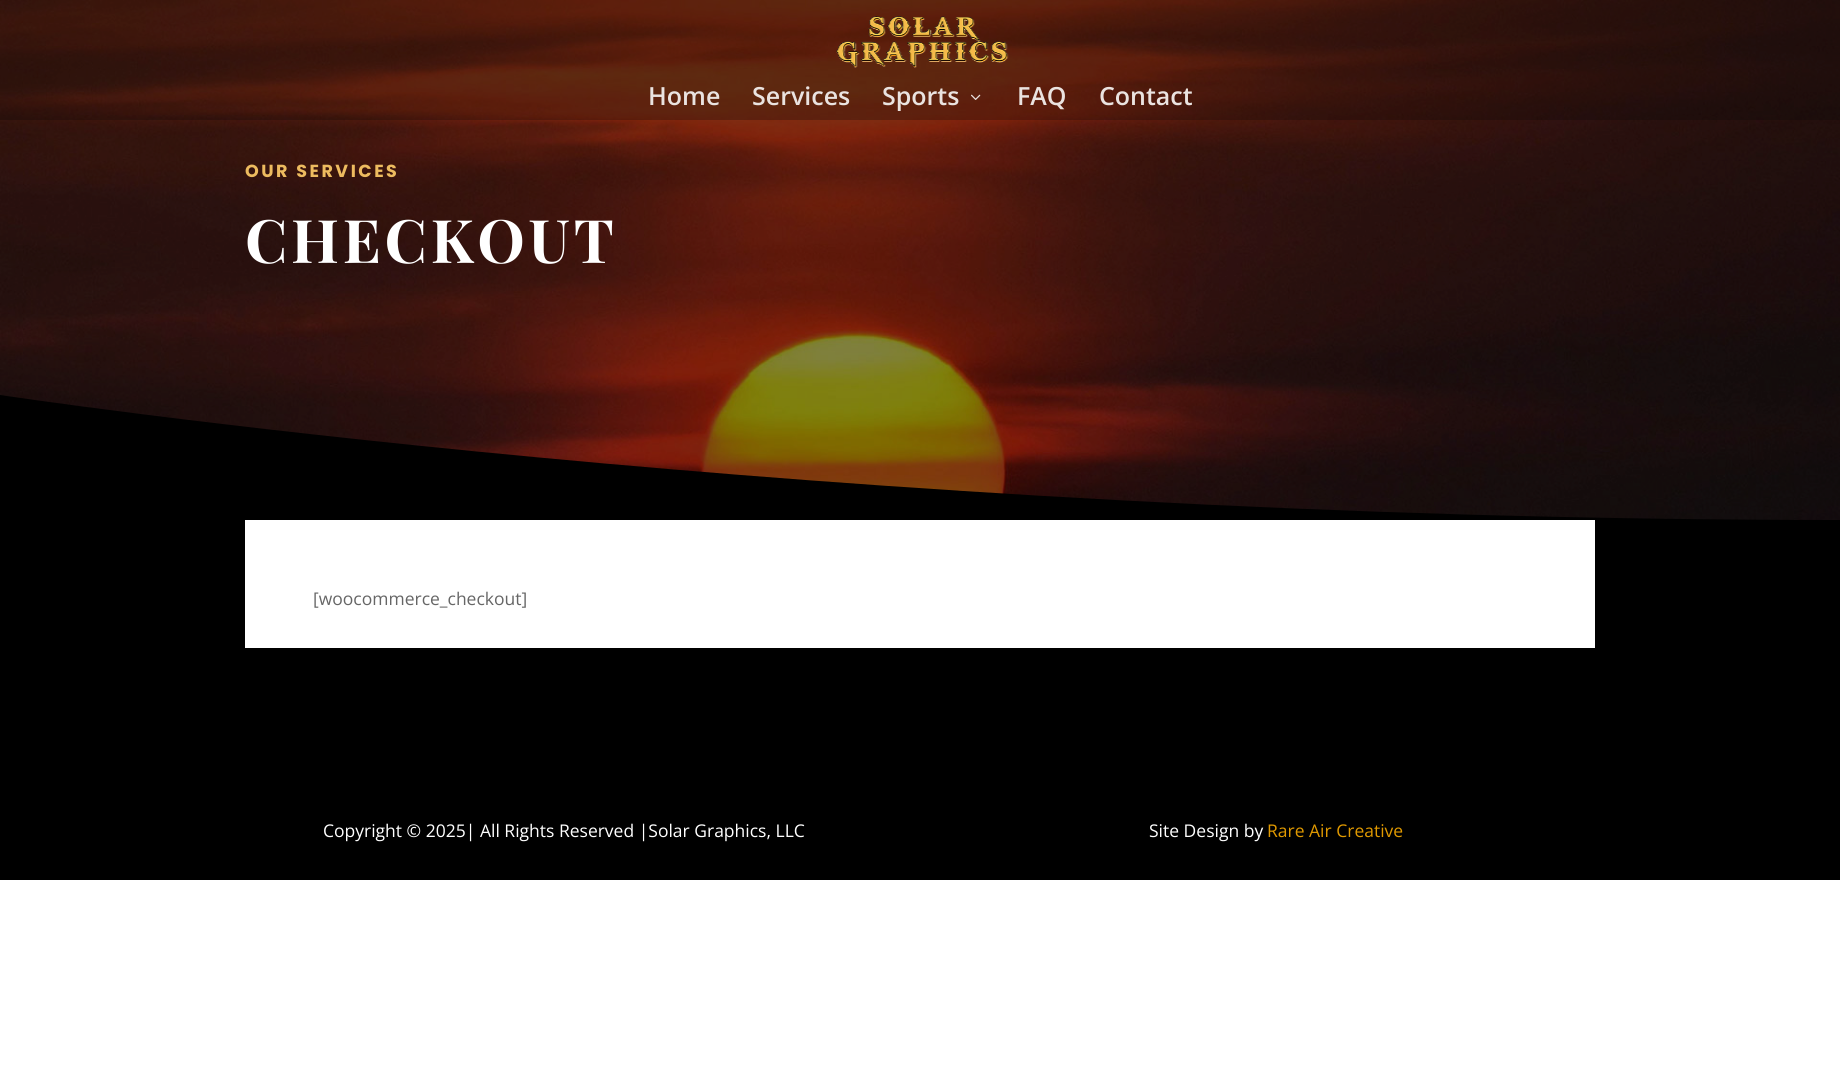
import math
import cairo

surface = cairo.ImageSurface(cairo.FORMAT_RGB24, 1840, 1083)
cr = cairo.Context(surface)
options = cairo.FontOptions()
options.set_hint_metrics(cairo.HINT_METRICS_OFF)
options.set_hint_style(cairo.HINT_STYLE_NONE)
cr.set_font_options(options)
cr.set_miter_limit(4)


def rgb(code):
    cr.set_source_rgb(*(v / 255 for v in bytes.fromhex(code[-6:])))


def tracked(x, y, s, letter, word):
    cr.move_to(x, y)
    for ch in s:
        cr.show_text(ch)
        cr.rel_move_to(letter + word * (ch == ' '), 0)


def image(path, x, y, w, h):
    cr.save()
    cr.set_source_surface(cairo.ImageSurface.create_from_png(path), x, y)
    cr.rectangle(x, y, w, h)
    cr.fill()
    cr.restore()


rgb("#ffffff")
cr.paint()
image("img/3.png", 0, 0, 1840, 520)
cr.set_source_rgba(0.039, 0.039, 0.039, 0.28)
cr.rectangle(0, 0, 1840, 120)
cr.fill()
image("img/1.png", 836, 16, 173, 52)
image("img/2.png", 971, 94, 10, 6)
rgb("#000000")
cr.new_path()
cr.move_to(0, 520)
cr.line_to(1840, 520)
cr.curve_to(824, 520, 0, 395, 0, 395)
cr.close_path()
cr.fill()
cr.rectangle(0, 520, 1840, 360)
cr.fill()
rgb("#ffffff")
cr.rectangle(245, 520, 1350, 128)
cr.fill()
cr.select_font_face("Open Sans SemiBold")
cr.set_font_size(25)
rgb("#eae3e0")
for x, y, s in [
    (648, 105, "Home"),
    (752, 105, "Services"),
    (882, 105, "Sports"),
    (1017, 105, "FAQ"),
    (1099, 105, "Contact"),
]:
    cr.move_to(x, y)
    cr.show_text(s)
cr.select_font_face("Poppins", cairo.FONT_SLANT_NORMAL, cairo.FONT_WEIGHT_BOLD)
cr.set_font_size(17.5)
rgb("#edbb5f")
tracked(245, 177, "OUR SERVICES", 2.5, 0)
cr.select_font_face("Playfair Display", cairo.FONT_SLANT_NORMAL, cairo.FONT_WEIGHT_BOLD)
cr.set_font_size(60)
rgb("#ffffff")
tracked(245, 263, "CHECKOUT", 3.75, 0)
cr.select_font_face("Open Sans")
cr.set_font_size(17.5)
rgb("#666666")
cr.move_to(313, 605)
cr.show_text("[woocommerce_checkout]")
rgb("#ffffff")
cr.move_to(323, 837)
cr.show_text("Copyright © 2025| All Rights Reserved |Solar Graphics, LLC")
cr.move_to(1149, 837)
cr.show_text("Site Design by")
rgb("#e09900")
cr.move_to(1267, 837)
cr.show_text("Rare Air Creative")
surface.write_to_png("page.png")
